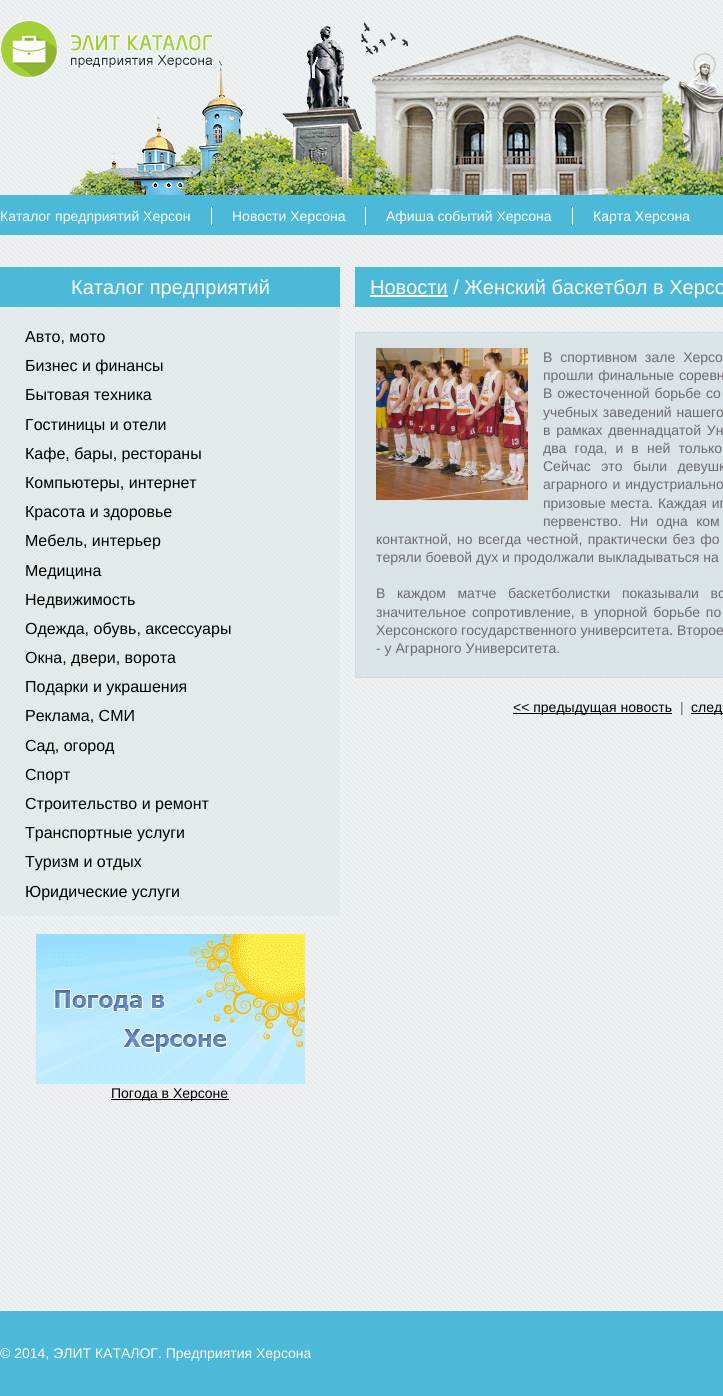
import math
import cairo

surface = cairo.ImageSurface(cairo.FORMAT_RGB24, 723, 1396)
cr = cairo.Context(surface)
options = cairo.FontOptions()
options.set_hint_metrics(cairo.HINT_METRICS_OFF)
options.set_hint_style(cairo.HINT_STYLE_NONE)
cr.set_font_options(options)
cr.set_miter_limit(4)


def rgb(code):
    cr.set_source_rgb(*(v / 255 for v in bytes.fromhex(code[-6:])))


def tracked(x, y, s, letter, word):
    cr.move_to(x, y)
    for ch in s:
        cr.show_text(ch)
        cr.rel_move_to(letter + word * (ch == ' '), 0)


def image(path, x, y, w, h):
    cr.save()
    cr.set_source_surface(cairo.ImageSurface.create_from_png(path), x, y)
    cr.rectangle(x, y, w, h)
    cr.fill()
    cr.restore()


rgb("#ffffff")
cr.paint()
image("img/1.png", 0, 0, 723, 1311)
image("img/2.png", 69, 22, 654, 173)
image("img/3.png", 0, 20, 213, 58)
rgb("#4cb9d8")
cr.rectangle(0, 195, 723, 40)
cr.fill()
rgb("#ffffff")
cr.rectangle(211, 207, 1, 18)
cr.rectangle(365, 207, 1, 18)
cr.rectangle(572, 207, 1, 18)
cr.fill()
rgb("#4cb9d8")
cr.rectangle(0, 267, 340, 40)
cr.fill()
cr.set_source_rgba(0.851, 0.886, 0.906, 0.42)
cr.rectangle(0, 307, 340, 609)
cr.fill()
image("img/4.png", 36, 934, 269, 150)
for x, y, w, h, color in [
    (111, 1099, 118, 1, "#000000"),
    (355, 267, 368, 40, "#4cb9d8"),
    (370, 295, 78, 2, "#ffffff"),
]:
    rgb(color)
    cr.rectangle(x, y, w, h)
    cr.fill()
rgb("#dae3e6")
cr.rectangle(355.5, 332.5, 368, 345)
cr.fill_preserve()
rgb("#cddce0")
cr.set_line_width(1)
cr.stroke()
image("img/5.png", 376, 348, 152, 152)
for x, y, w, h, color in [
    (513, 713, 159, 1, "#000000"),
    (691, 713, 32, 1, "#000000"),
    (0, 1311, 723, 85, "#4cb9d8"),
]:
    rgb(color)
    cr.rectangle(x, y, w, h)
    cr.fill()
cr.select_font_face("Liberation Sans")
cr.set_font_size(14)
rgb("#ffffff")
for x, y, s in [
    (0, 221, "Каталог предприятий Херсон"),
    (232, 221, "Новости Херсона"),
    (386, 221, "Афиша событий Херсона"),
    (593, 221, "Карта Херсона"),
]:
    cr.move_to(x, y)
    cr.show_text(s)
cr.set_font_size(20)
cr.move_to(71, 294)
cr.show_text("Каталог предприятий")
cr.set_font_size(16)
rgb("#000000")
for x, y, s in [
    (25, 342, "Авто, мото"),
    (25, 371, "Бизнес и финансы"),
    (25, 400, "Бытовая техника"),
    (25, 430, "Гостиницы и отели"),
    (25, 459, "Кафе, бары, рестораны"),
    (25, 488, "Компьютеры, интернет"),
    (25, 517, "Красота и здоровье"),
    (25, 546, "Мебель, интерьер"),
    (25, 576, "Медицина"),
    (25, 605, "Недвижимость"),
    (25, 634, "Одежда, обувь, аксессуары"),
    (25, 663, "Окна, двери, ворота"),
    (25, 692, "Подарки и украшения"),
    (25, 721, "Реклама, СМИ"),
    (25, 751, "Сад, огород"),
    (25, 780, "Спорт"),
    (25, 809, "Строительство и ремонт"),
    (25, 838, "Транспортные услуги"),
    (25, 867, "Туризм и отдых"),
    (25, 897, "Юридические услуги"),
]:
    cr.move_to(x, y)
    cr.show_text(s)
cr.set_font_size(14)
cr.move_to(111, 1098)
cr.show_text("Погода в Херсоне")
cr.set_font_size(20)
rgb("#ffffff")
cr.move_to(370, 294)
cr.show_text("Новости / Женский баскетбол в Херсо")
cr.set_font_size(14)
rgb("#6c6c6c")
tracked(543, 362, "В спортивном зале Херсо", 0, 4)
for x, y, s in [
    (543, 380, "прошли финальные соревн"),
    (543, 398, "В ожесточенной борьбе со"),
    (543, 417, "учебных заведений нашего"),
]:
    tracked(x, y, s, 0, 1)
tracked(543, 435, "в рамках двеннадцатой Ун", 0, 2)
tracked(543, 453, "два года, и в ней только", 0, 4.25)
tracked(543, 471, "Сейчас это были девушк", 0, 6.5)
tracked(543, 489, "аграрного и индустриально", 0, 1)
tracked(543, 508, "призовые места. Каждая иг", 0, 1)
tracked(543, 526, "первенство. Ни одна ком", 0, 4.5)
tracked(376, 544, "контактной, но всегда честной, практически без фо", 0, 1.5)
cr.move_to(376, 562)
cr.show_text("теряли боевой дух и продолжали выкладываться на")
tracked(376, 598, "В каждом матче баскетболистки показывали вс", 0, 7.75)
tracked(376, 617, "значительное сопротивление, в упорной борьбе по", 0, 2)
cr.move_to(376, 635)
cr.show_text("Херсонского государственного университета. Второе")
cr.move_to(376, 653)
cr.show_text("- у Аграрного Университета.")
rgb("#000000")
cr.move_to(513, 712)
cr.show_text("<< предыдущая новость")
rgb("#6c6c6c")
cr.move_to(680, 712)
cr.show_text("|")
rgb("#000000")
cr.move_to(691, 712)
cr.show_text("след")
rgb("#ffffff")
cr.move_to(0, 1358)
cr.show_text("© 2014, ЭЛИТ КАТАЛОГ. Предприятия Херсона")
surface.write_to_png("page.png")
